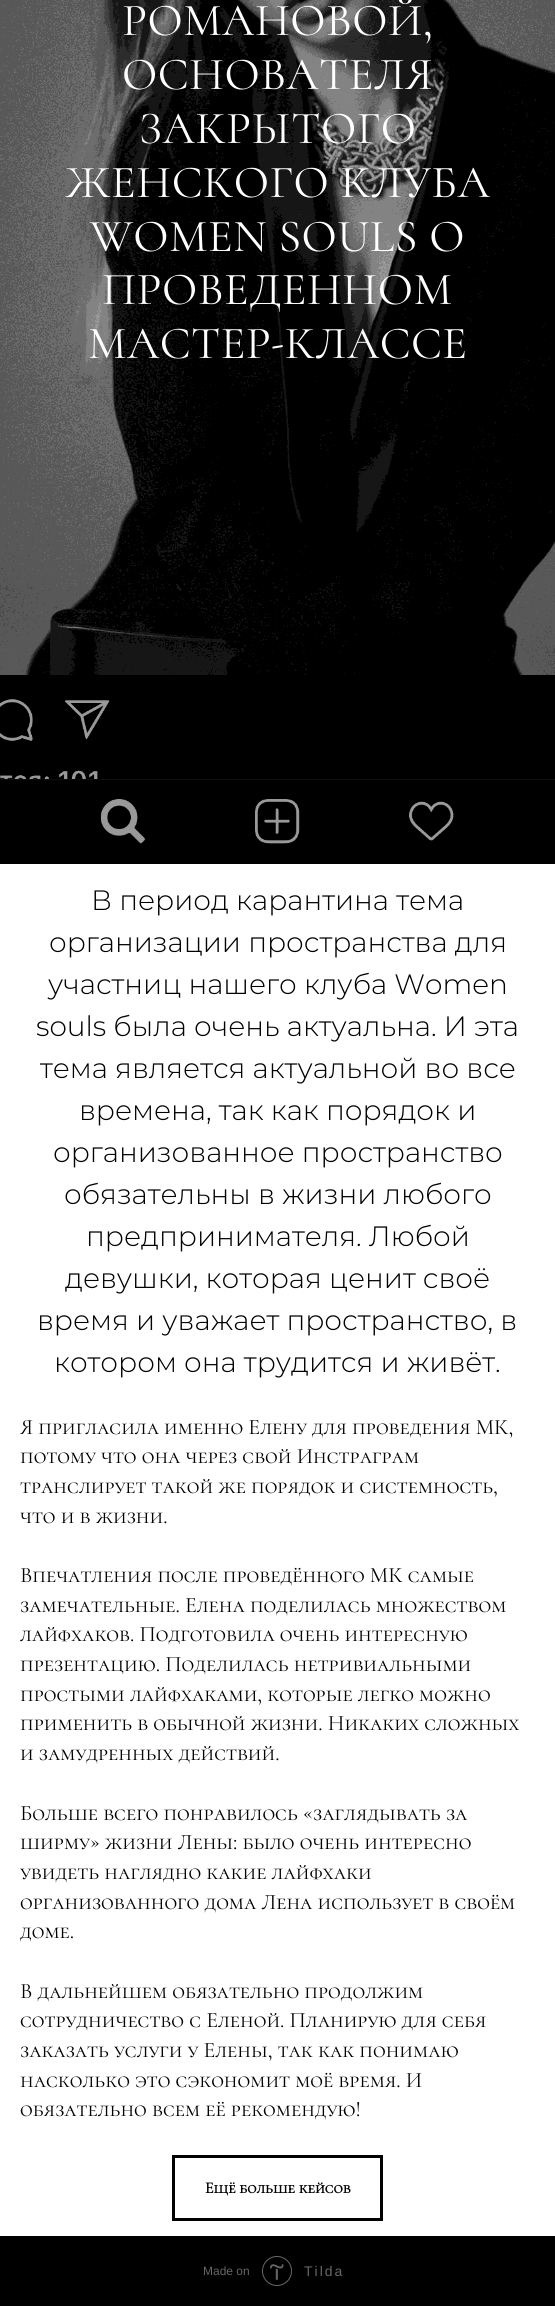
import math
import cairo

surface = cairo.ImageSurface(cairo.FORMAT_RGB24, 555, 2306)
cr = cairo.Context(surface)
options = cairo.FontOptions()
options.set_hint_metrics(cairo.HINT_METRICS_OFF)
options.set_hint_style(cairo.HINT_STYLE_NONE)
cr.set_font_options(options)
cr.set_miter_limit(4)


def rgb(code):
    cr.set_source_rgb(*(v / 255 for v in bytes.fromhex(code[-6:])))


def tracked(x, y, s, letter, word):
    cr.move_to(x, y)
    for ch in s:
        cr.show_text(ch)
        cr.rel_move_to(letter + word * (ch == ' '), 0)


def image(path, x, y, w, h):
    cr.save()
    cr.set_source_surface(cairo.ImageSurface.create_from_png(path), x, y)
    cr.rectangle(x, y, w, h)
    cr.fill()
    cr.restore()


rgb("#ffffff")
cr.paint()
image("img/1.png", 0, 0, 555, 864)
cr.rectangle(173.5, 2156.5, 208, 63)
rgb("#000000")
cr.set_line_width(3)
cr.stroke()
cr.rectangle(0, 2236, 555, 70)
cr.fill()
image("img/2.png", 262, 2256, 30, 30)
cr.select_font_face("Cormorant SC")
cr.set_font_size(46)
rgb("#ffffff")
for x, y, s in [
    (122, 35, "РОМАНОВОЙ,"),
    (122, 89, "ОСНОВАТЕЛЯ"),
    (139, 143, "ЗАКРЫТОГО"),
    (65, 197, "ЖЕНСКОГО КЛУБА"),
    (90, 251, "WOMEN SOULS О"),
    (102, 304, "ПРОВЕДЕННОМ"),
    (88, 358, "МАСТЕР-КЛАССЕ"),
]:
    tracked(x, y, s, 0.5, 0)
cr.select_font_face("Montserrat Light")
cr.set_font_size(28)
rgb("#000000")
for x, y, s in [
    (91, 910, "В период карантина тема"),
    (49, 952, "организации пространства для"),
    (48, 994, "участниц нашего клуба Women"),
    (36, 1036, "souls была очень актуальна. И эта"),
    (40, 1078, "тема является актуальной во все"),
    (79, 1120, "времена, так как порядок и"),
    (53, 1162, "организованное пространство"),
    (64, 1204, "обязательны в жизни любого"),
    (86, 1246, "предпринимателя. Любой"),
    (65, 1288, "девушки, которая ценит своё"),
    (37, 1330, "время и уважает пространство, в"),
    (54, 1372, "котором она трудится и живёт."),
]:
    cr.move_to(x, y)
    cr.show_text(s)
cr.select_font_face("Cormorant SC")
cr.set_font_size(22)
for x, y, s in [
    (20, 1434, "Я пригласила именно Елену для проведения МК,"),
    (20, 1463, "потому что она через свой Инстраграм"),
    (20, 1493, "транслирует такой же порядок и системность,"),
    (20, 1523, "что и в жизни."),
    (20, 1582, "Впечатления после проведённого МК самые"),
    (20, 1612, "замечательные. Елена поделилась множеством"),
    (20, 1641, "лайфхаков. Подготовила очень интересную"),
    (20, 1671, "презентацию. Поделилась нетривиальными"),
    (20, 1701, "простыми лайфхаками, которые легко можно"),
    (20, 1730, "применить в обычной жизни. Никаких сложных"),
    (20, 1760, "и замудренных действий."),
    (20, 1820, "Больше всего понравилось «заглядывать за"),
    (20, 1849, "ширму» жизни Лены: было очень интересно"),
    (20, 1879, "увидеть наглядно какие лайфхаки"),
    (20, 1909, "организованного дома Лена использует в своём"),
    (20, 1938, "доме."),
    (20, 1998, "В дальнейшем обязательно продолжим"),
    (20, 2027, "сотрудничество с Еленой. Планирую для себя"),
    (20, 2057, "заказать услуги у Елены, так как понимаю"),
    (20, 2087, "насколько это сэкономит моё время. И"),
    (20, 2116, "обязательно всем её рекомендую!"),
]:
    cr.move_to(x, y)
    cr.show_text(s)
cr.select_font_face("Cormorant SC", cairo.FONT_SLANT_NORMAL, cairo.FONT_WEIGHT_BOLD)
cr.set_font_size(16)
cr.move_to(205, 2193)
cr.show_text("Ещё больше кейсов")
cr.select_font_face("Liberation Sans")
cr.set_font_size(12)
rgb("#666666")
cr.move_to(203, 2275)
cr.show_text("Made on")
cr.set_font_size(14)
tracked(304, 2276, "Tilda", 2, 0)
surface.write_to_png("page.png")
